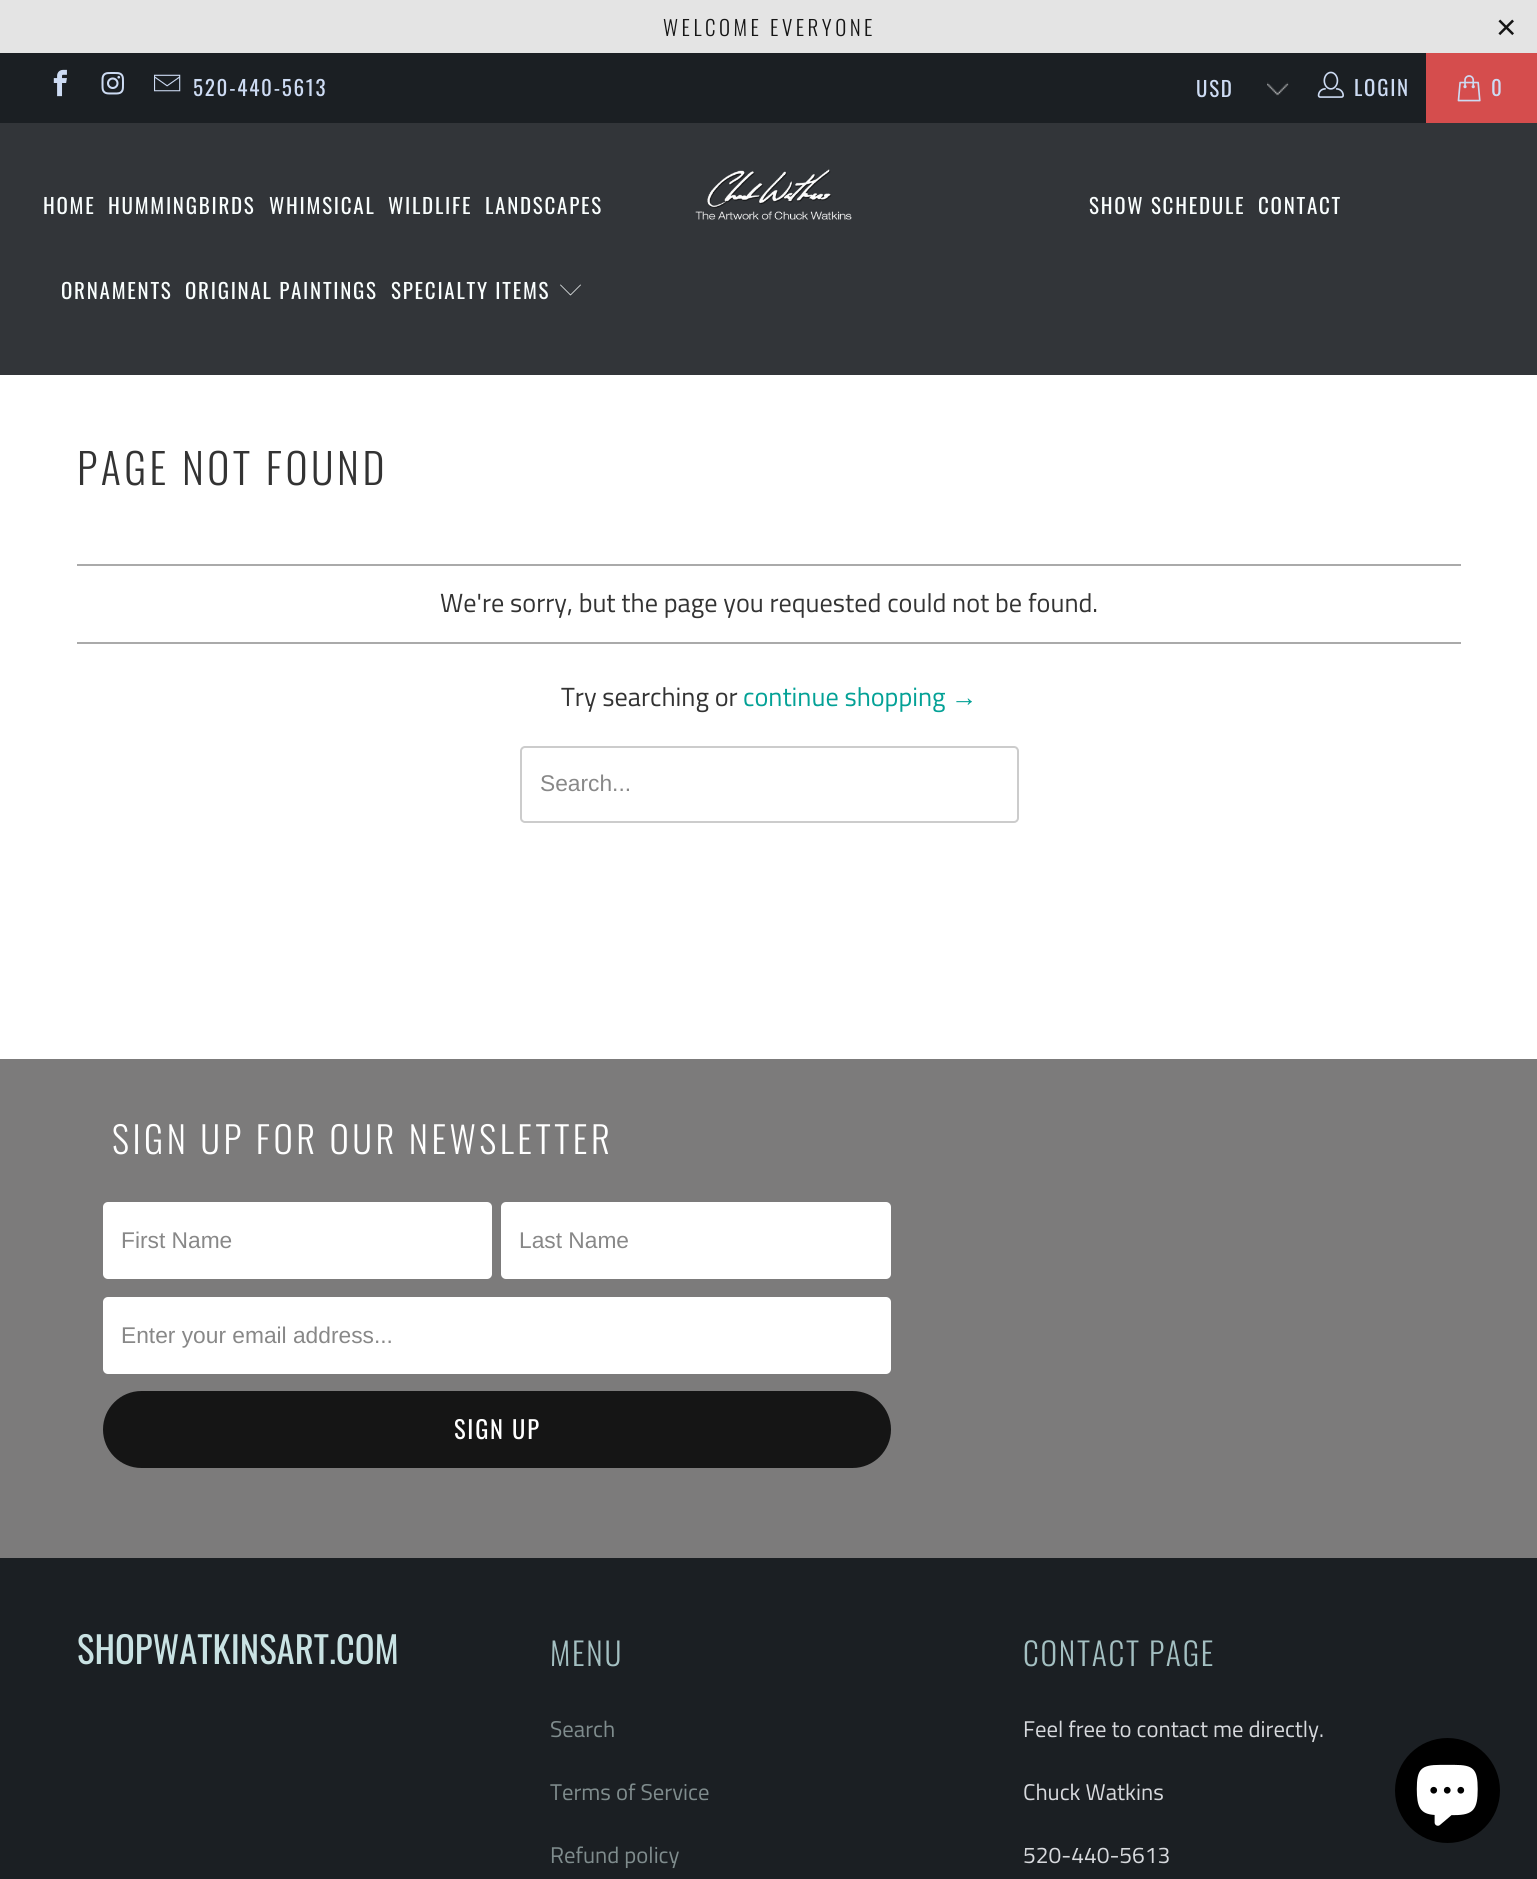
import math
import cairo

surface = cairo.ImageSurface(cairo.FORMAT_RGB24, 1537, 1879)
cr = cairo.Context(surface)
options = cairo.FontOptions()
options.set_hint_metrics(cairo.HINT_METRICS_OFF)
options.set_hint_style(cairo.HINT_STYLE_NONE)
cr.set_font_options(options)
cr.set_miter_limit(4)


def rgb(code):
    cr.set_source_rgb(*(v / 255 for v in bytes.fromhex(code[-6:])))


def tracked(x, y, s, letter, word):
    cr.move_to(x, y)
    for ch in s:
        cr.show_text(ch)
        cr.rel_move_to(letter + word * (ch == ' '), 0)


def rrect(x, y, w, h, r):
    cr.new_sub_path()
    for i, (u, v) in enumerate([(x + w - r, y + h - r), (x + r, y + h - r), (x + r, y + r), (x + w - r, y + r)]):
        cr.arc(u, v, r, i * math.pi / 2, (i + 1) * math.pi / 2)
    cr.close_path()


def image(path, x, y, w, h):
    cr.save()
    cr.set_source_surface(cairo.ImageSurface.create_from_png(path), x, y)
    cr.rectangle(x, y, w, h)
    cr.fill()
    cr.restore()


rgb("#ffffff")
cr.paint()
rgb("#e4e4e4")
cr.rectangle(0, 0, 1537, 53)
cr.fill()
rgb("#1b1f23")
cr.rectangle(0, 53, 1426, 70)
cr.fill()
image("img/1.png", 53, 69, 14, 28)
image("img/2.png", 101, 72, 23, 23)
image("img/3.png", 154, 74, 27, 18)
image("img/4.png", 1267, 82, 22, 14)
image("img/5.png", 1317, 71, 27, 27)
rgb("#d54d4d")
cr.rectangle(1426, 53, 111, 70)
cr.fill()
image("img/6.png", 1457, 75, 24, 27)
rgb("#323539")
cr.rectangle(0, 123, 1537, 252)
cr.fill()
rgb("#f9fefe")
cr.new_path()
cr.move_to(570.5, 295.5)
cr.line_to(560, 285)
cr.line_to(560.5, 284.5)
cr.line_to(570.5, 294.5)
cr.line_to(580.5, 284.5)
cr.line_to(581, 285)
cr.close_path()
cr.fill()
image("img/7.png", 695, 169, 157, 51)
rgb("#aaaaaa")
cr.rectangle(77, 564, 1384, 2)
cr.fill()
cr.rectangle(77, 642, 1384, 2)
cr.fill()
rrect(521, 747, 497, 75, 4)
rgb("#cccccc")
cr.stroke()
rgb("#7c7b7b")
cr.rectangle(0, 1059, 1537, 499)
cr.fill()
rgb("#ffffff")
rrect(103, 1202, 389, 77, 5)
cr.fill()
rrect(501, 1202, 390, 77, 5)
cr.fill()
rrect(103, 1297, 788, 77, 5)
cr.fill()
rgb("#151515")
rrect(104, 1392, 786, 75, 37.5)
cr.fill_preserve()
cr.stroke()
rgb("#1b1f23")
cr.rectangle(0, 1558, 1537, 321)
cr.fill()
rgb("#000000")
cr.arc(1447.5, 1790.5, 52.5, 0, 2 * math.pi)
cr.fill()
image("img/8.png", 1416, 1764, 62, 62)
cr.select_font_face("Oswald Light")
cr.set_font_size(21)
rgb("#151515")
tracked(663, 36, "WELCOME EVERYONE", 3.5, 0)
cr.select_font_face("Liberation Sans")
cr.set_font_size(35)
tracked(1496, 39, "×", 3.5, 0)
cr.select_font_face("Oswald")
cr.set_font_size(21)
rgb("#cddbf3")
for x, y, s in [
    (193, 96, "520-440-5613"),
    (1196, 97, "USD"),
    (1354, 96, "LOGIN"),
    (1491, 96, "0"),
]:
    tracked(x, y, s, 1.75, 0)
rgb("#f9fefe")
for x, y, s in [
    (43, 214, "HOME"),
    (108, 214, "HUMMINGBIRDS"),
    (269, 214, "WHIMSICAL"),
    (388, 214, "WILDLIFE"),
    (485, 214, "LANDSCAPES"),
    (61, 299, "ORNAMENTS"),
    (185, 299, "ORIGINAL PAINTINGS"),
    (391, 299, "SPECIALTY ITEMS"),
    (1089, 214, "SHOW SCHEDULE"),
    (1258, 214, "CONTACT"),
]:
    tracked(x, y, s, 1.75, 0)
cr.select_font_face("Oswald Light")
cr.set_font_size(42)
rgb("#333333")
tracked(77, 485, "PAGE NOT FOUND", 3.5, 0)
cr.select_font_face("Titillium Web")
cr.set_font_size(26.25)
cr.move_to(440, 612)
cr.show_text("We're sorry, but the page you requested could not be found.")
cr.move_to(561, 706)
cr.show_text("Try searching or")
rgb("#03a196")
cr.move_to(743, 706)
cr.show_text("continue shopping")
cr.select_font_face("Liberation Sans")
cr.move_to(951, 706)
cr.show_text("→")
cr.set_font_size(22.75)
rgb("#888888")
cr.move_to(540, 791)
cr.show_text("Search...")
cr.select_font_face("Oswald Light")
cr.set_font_size(36.75)
rgb("#ffffff")
tracked(112, 1154, "SIGN UP FOR OUR NEWSLETTER", 3.5, 0)
cr.select_font_face("Liberation Sans")
cr.set_font_size(22.75)
rgb("#888888")
for x, y, s in [
    (121, 1248, "First Name"),
    (519, 1248, "Last Name"),
    (121, 1343, "Enter your email address..."),
]:
    cr.move_to(x, y)
    cr.show_text(s)
cr.select_font_face("Oswald")
cr.set_font_size(24.5)
rgb("#ffffff")
tracked(454, 1439, "SIGN UP", 1.75, 0)
cr.set_font_size(36.75)
rgb("#c9e2e3")
cr.move_to(77, 1664)
cr.show_text("SHOPWATKINSART.COM")
cr.select_font_face("Oswald Light")
cr.set_font_size(31.5)
rgb("#a4c0c2")
tracked(550, 1666, "MENU", 1.75, 0)
cr.select_font_face("Titillium Web")
cr.set_font_size(22.75)
rgb("#7f8c8d")
for x, y, s in [
    (550, 1737, "Search"),
    (550, 1800, "Terms of Service"),
    (550, 1863, "Refund policy"),
]:
    cr.move_to(x, y)
    cr.show_text(s)
cr.select_font_face("Oswald Light")
cr.set_font_size(31.5)
rgb("#a4c0c2")
tracked(1023, 1666, "CONTACT PAGE", 1.75, 0)
cr.select_font_face("Titillium Web")
cr.set_font_size(22.75)
rgb("#d7d9dd")
for x, y, s in [
    (1023, 1737, "Feel free to contact me directly."),
    (1023, 1800, "Chuck Watkins"),
    (1023, 1863, "520-440-5613"),
]:
    cr.move_to(x, y)
    cr.show_text(s)
surface.write_to_png("page.png")
